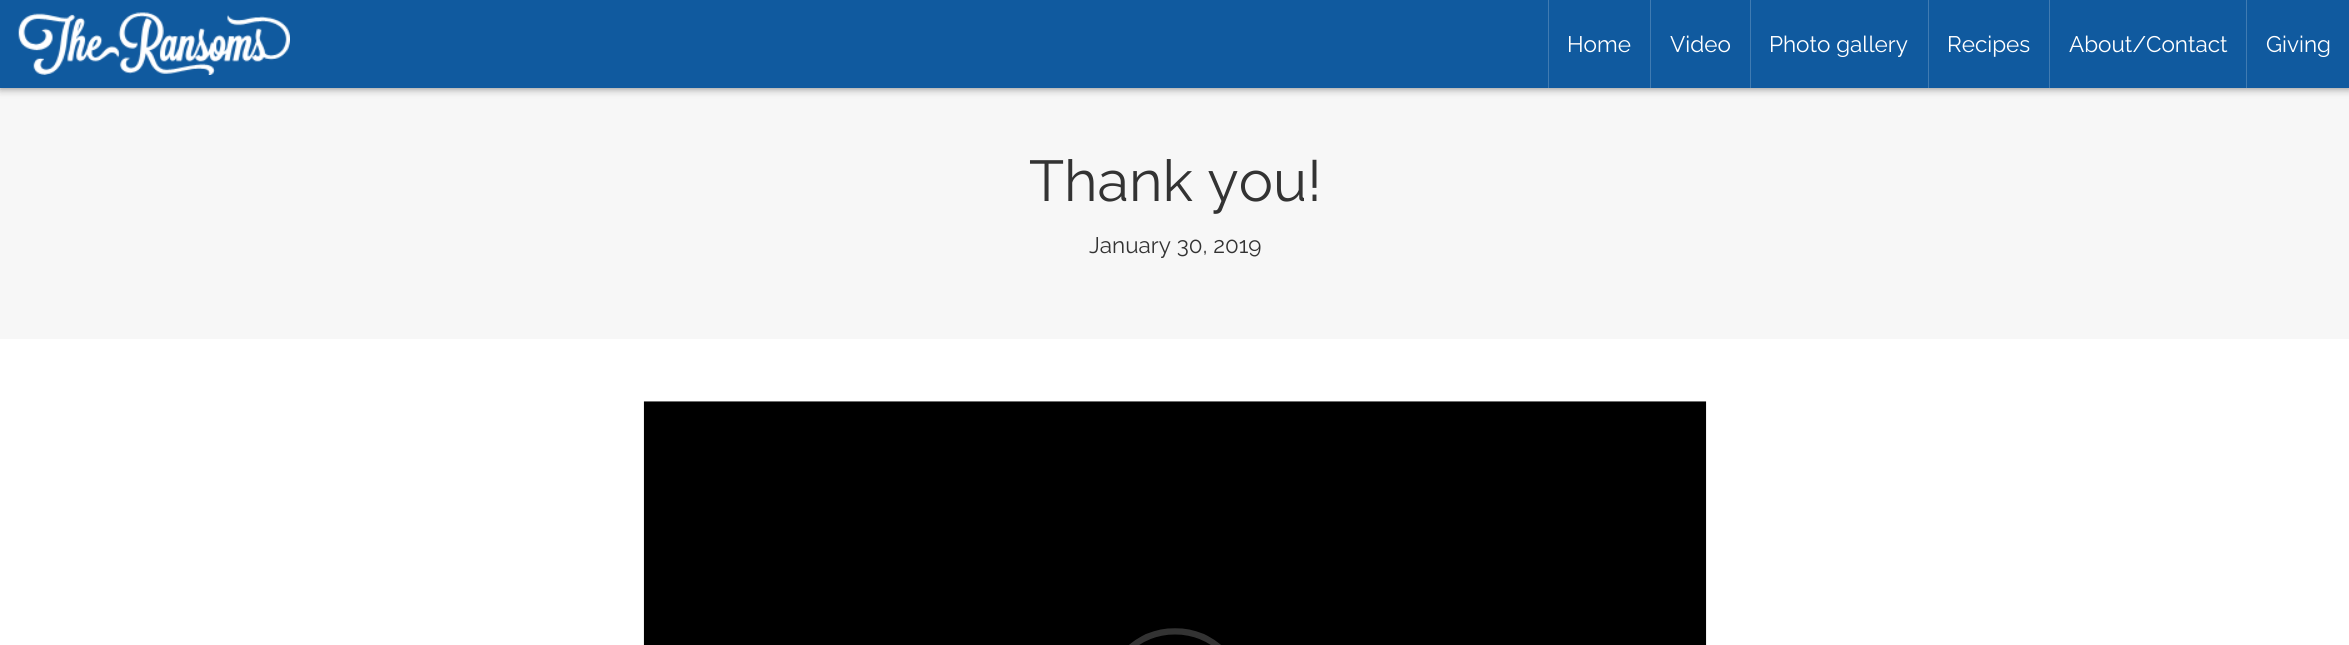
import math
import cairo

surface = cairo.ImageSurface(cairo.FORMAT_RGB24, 2349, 645)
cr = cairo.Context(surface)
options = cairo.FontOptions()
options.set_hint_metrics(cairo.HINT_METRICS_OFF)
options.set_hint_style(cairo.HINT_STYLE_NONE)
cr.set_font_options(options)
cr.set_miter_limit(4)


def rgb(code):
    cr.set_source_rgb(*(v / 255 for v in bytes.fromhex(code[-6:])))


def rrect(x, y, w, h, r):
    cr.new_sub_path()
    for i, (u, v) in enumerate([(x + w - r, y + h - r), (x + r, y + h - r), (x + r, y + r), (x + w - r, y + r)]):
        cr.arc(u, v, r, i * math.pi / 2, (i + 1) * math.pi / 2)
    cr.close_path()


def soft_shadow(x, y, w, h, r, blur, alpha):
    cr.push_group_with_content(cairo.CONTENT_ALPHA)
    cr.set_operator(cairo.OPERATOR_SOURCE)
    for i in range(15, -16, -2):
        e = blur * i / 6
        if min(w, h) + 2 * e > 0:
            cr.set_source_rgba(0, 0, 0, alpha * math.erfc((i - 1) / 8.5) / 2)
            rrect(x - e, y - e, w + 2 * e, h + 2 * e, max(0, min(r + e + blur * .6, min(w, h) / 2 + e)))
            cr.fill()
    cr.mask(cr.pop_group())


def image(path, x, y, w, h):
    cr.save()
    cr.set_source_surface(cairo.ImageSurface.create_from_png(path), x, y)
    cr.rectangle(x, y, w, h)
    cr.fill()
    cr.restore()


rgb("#ffffff")
cr.paint()
rgb("#f7f7f7")
cr.rectangle(0, 88, 2349, 251)
cr.fill()
rgb("#000000")
soft_shadow(0, 0, 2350, 88, 0, 4.5, 0.5)
rgb("#105a9f")
cr.rectangle(0, 0, 2349, 88)
cr.fill()
image("img/1.png", 18, 12, 272, 63)
for x, y, w, h, color in [
    (1650, 0, 1, 88, "#407bb2"),
    (1548, 0, 1, 88, "#407bb2"),
    (1750, 0, 1, 88, "#407bb2"),
    (1928, 0, 1, 88, "#407bb2"),
    (2049, 0, 1, 88, "#407bb2"),
    (2246, 0, 1, 88, "#407bb2"),
]:
    rgb(color)
    cr.rectangle(x, y, w, h)
    cr.fill()
image("img/2.png", 643, 401, 1064, 244)
cr.select_font_face("Raleway")
cr.set_font_size(22.5)
rgb("#ffffff")
for x, y, s in [
    (1567, 52, "Home"),
    (1670, 52, "Video"),
    (1769, 52, "Photo gallery"),
    (1947, 52, "Recipes"),
    (2069, 52, "About/Contact"),
    (2266, 52, "Giving"),
]:
    cr.move_to(x, y)
    cr.show_text(s)
cr.set_font_size(57.5)
rgb("#333333")
cr.move_to(1029, 201)
cr.show_text("Thank you!")
cr.set_font_size(22.5)
cr.move_to(1089, 253)
cr.show_text("January 30, 2019")
surface.write_to_png("page.png")
